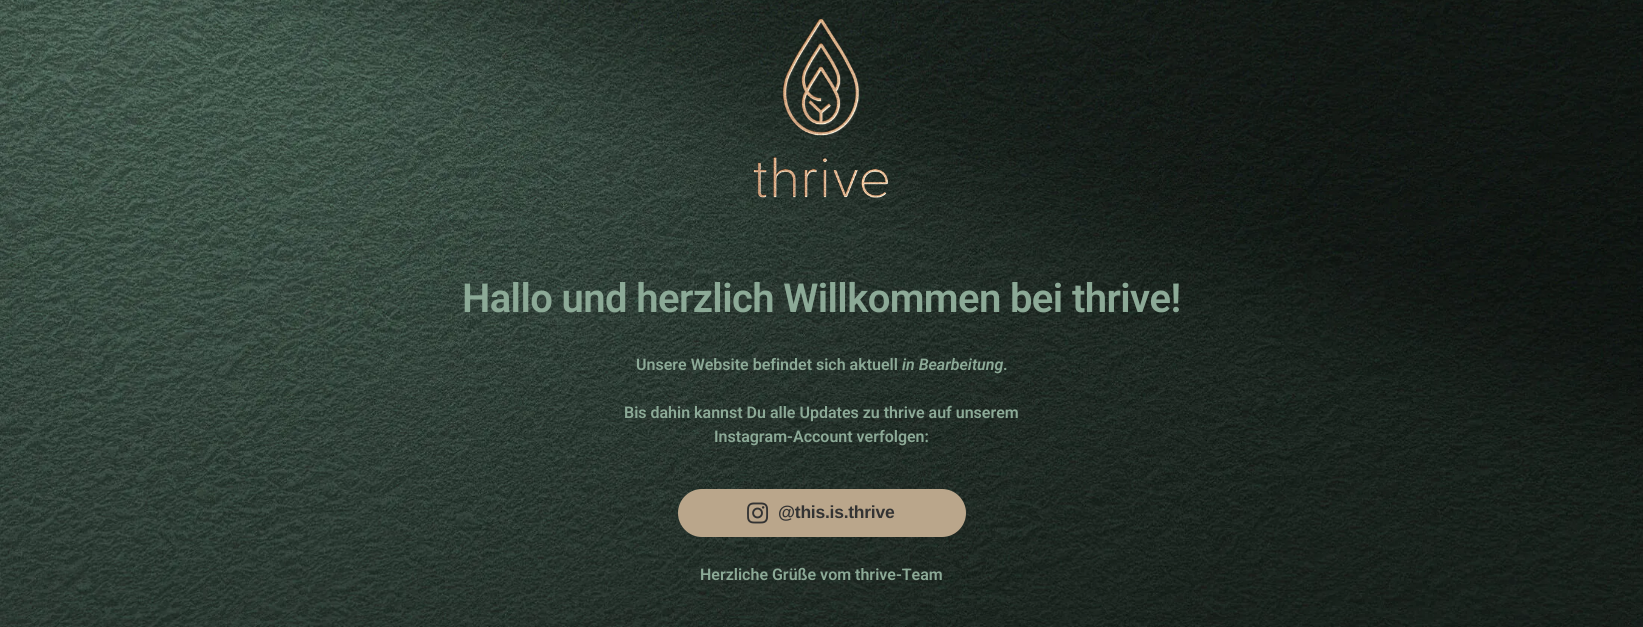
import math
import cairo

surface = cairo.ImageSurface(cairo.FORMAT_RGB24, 1643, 627)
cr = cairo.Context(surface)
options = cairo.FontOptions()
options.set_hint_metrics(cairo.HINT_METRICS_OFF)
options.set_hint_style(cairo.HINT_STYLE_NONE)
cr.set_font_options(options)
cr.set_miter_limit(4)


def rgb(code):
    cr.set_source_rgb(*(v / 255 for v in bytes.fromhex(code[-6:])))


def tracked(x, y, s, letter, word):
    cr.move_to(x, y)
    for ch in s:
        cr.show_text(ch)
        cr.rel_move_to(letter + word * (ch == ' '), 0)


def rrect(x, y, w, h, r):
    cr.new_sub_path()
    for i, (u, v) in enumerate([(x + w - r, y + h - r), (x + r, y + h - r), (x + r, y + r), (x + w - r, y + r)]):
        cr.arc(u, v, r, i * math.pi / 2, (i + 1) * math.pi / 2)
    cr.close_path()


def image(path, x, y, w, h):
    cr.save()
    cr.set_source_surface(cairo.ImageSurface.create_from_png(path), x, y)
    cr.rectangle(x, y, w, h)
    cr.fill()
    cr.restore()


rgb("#ffffff")
cr.paint()
image("img/1.png", 0, 0, 1643, 627)
image("img/2.png", 782, 19, 78, 118)
image("img/3.png", 753, 157, 135, 41)
rgb("#baa68b")
rrect(678, 489, 288, 48, 24)
cr.fill()
image("img/4.png", 747, 502, 22, 22)
cr.select_font_face("Roboto SemiBold")
cr.set_font_size(40)
rgb("#8caa97")
tracked(462, 312, "Hallo und herzlich Willkommen bei thrive!", -0.6, 0)
cr.set_font_size(16)
cr.move_to(636, 370)
cr.show_text("Unsere Website befindet sich aktuell")
cr.select_font_face("Roboto SemiBold", cairo.FONT_SLANT_ITALIC)
cr.move_to(902, 370)
cr.show_text("in Bearbeitung")
cr.select_font_face("Roboto SemiBold")
for x, y, s in [
    (1003, 370, "."),
    (624, 418, "Bis dahin kannst Du alle Updates zu thrive auf unserem"),
    (714, 442, "Instagram-Account verfolgen:"),
]:
    cr.move_to(x, y)
    cr.show_text(s)
cr.select_font_face("Liberation Sans", cairo.FONT_SLANT_NORMAL, cairo.FONT_WEIGHT_BOLD)
cr.set_font_size(17.5)
rgb("#333333")
tracked(778, 518, "@this.is.thrive", -0.25, 0)
cr.select_font_face("Roboto SemiBold")
cr.set_font_size(16)
rgb("#8caa97")
cr.move_to(700, 580)
cr.show_text("Herzliche Grüße vom thrive-Team")
surface.write_to_png("page.png")
